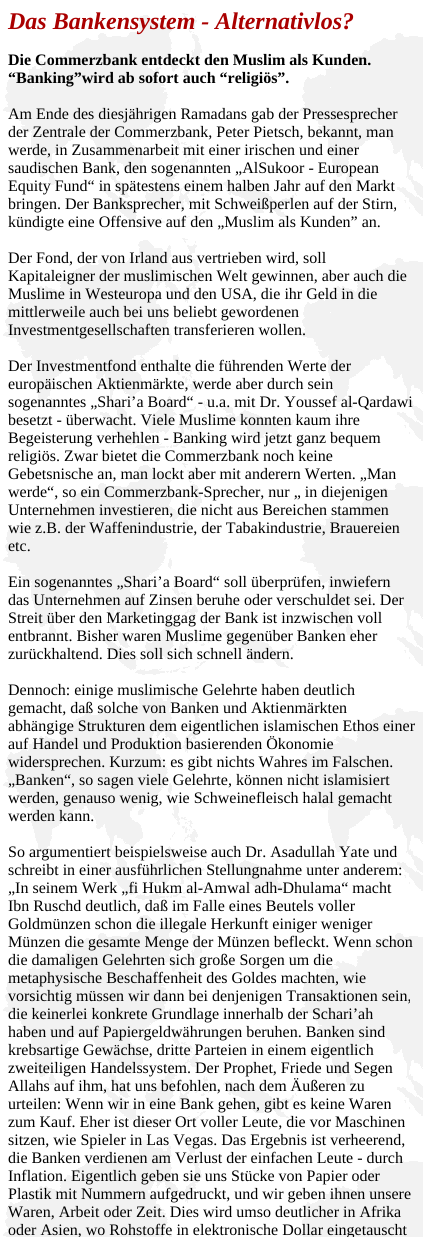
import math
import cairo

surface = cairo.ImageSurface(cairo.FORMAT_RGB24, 423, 1237)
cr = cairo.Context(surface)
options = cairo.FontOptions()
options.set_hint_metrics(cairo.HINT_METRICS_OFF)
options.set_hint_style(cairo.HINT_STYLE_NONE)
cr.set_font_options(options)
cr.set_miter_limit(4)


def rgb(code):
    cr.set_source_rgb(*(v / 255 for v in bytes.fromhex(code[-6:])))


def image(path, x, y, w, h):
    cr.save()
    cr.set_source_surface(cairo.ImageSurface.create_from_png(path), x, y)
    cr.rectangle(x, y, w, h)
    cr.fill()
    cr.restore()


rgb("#ffffff")
cr.paint()
image("img/1.png", 3, 13, 420, 1224)
cr.select_font_face("Liberation Serif", cairo.FONT_SLANT_ITALIC, cairo.FONT_WEIGHT_BOLD)
cr.set_font_size(24)
rgb("#aa0000")
cr.move_to(8, 29)
cr.show_text("Das Bankensystem - Alternativlos?")
cr.select_font_face("Liberation Serif", cairo.FONT_SLANT_NORMAL, cairo.FONT_WEIGHT_BOLD)
cr.set_font_size(16)
rgb("#000000")
cr.move_to(8, 65)
cr.show_text("Die Commerzbank entdeckt den Muslim als Kunden.")
cr.move_to(8, 83)
cr.show_text("“Banking”wird ab sofort auch “religiös”.")
cr.select_font_face("Liberation Serif")
for x, y, s in [
    (8, 119, "Am Ende des diesjährigen Ramadans gab der Pressesprecher"),
    (8, 137, "der Zentrale der Commerzbank, Peter Pietsch, bekannt, man"),
    (8, 155, "werde, in Zusammenarbeit mit einer irischen und einer"),
    (8, 173, "saudischen Bank, den sogenannten „AlSukoor - European"),
    (8, 191, "Equity Fund“ in spätestens einem halben Jahr auf den Markt"),
    (8, 209, "bringen. Der Banksprecher, mit Schweißperlen auf der Stirn,"),
    (8, 227, "kündigte eine Offensive auf den „Muslim als Kunden” an."),
    (8, 263, "Der Fond, der von Irland aus vertrieben wird, soll"),
    (8, 281, "Kapitaleigner der muslimischen Welt gewinnen, aber auch die"),
    (8, 299, "Muslime in Westeuropa und den USA, die ihr Geld in die"),
    (8, 317, "mittlerweile auch bei uns beliebt gewordenen"),
    (8, 335, "Investmentgesellschaften transferieren wollen."),
    (8, 371, "Der Investmentfond enthalte die führenden Werte der"),
    (8, 389, "europäischen Aktienmärkte, werde aber durch sein"),
    (8, 407, "sogenanntes „Shari’a Board“ - u.a. mit Dr. Youssef al-Qardawi"),
    (8, 425, "besetzt - überwacht. Viele Muslime konnten kaum ihre"),
    (8, 443, "Begeisterung verhehlen - Banking wird jetzt ganz bequem"),
    (8, 461, "religiös. Zwar bietet die Commerzbank noch keine"),
    (8, 479, "Gebetsnische an, man lockt aber mit anderern Werten. „Man"),
    (8, 497, "werde“, so ein Commerzbank-Sprecher, nur „ in diejenigen"),
    (8, 515, "Unternehmen investieren, die nicht aus Bereichen stammen"),
    (8, 533, "wie z.B. der Waffenindustrie, der Tabakindustrie, Brauereien"),
    (8, 551, "etc."),
    (8, 587, "Ein sogenanntes „Shari’a Board“ soll überprüfen, inwiefern"),
    (8, 605, "das Unternehmen auf Zinsen beruhe oder verschuldet sei. Der"),
    (8, 623, "Streit über den Marketinggag der Bank ist inzwischen voll"),
    (8, 641, "entbrannt. Bisher waren Muslime gegenüber Banken eher"),
    (8, 659, "zurückhaltend. Dies soll sich schnell ändern."),
    (8, 695, "Dennoch: einige muslimische Gelehrte haben deutlich"),
    (8, 713, "gemacht, daß solche von Banken und Aktienmärkten"),
    (8, 731, "abhängige Strukturen dem eigentlichen islamischen Ethos einer"),
    (8, 749, "auf Handel und Produktion basierenden Ökonomie"),
    (8, 767, "widersprechen. Kurzum: es gibt nichts Wahres im Falschen."),
    (8, 785, "„Banken“, so sagen viele Gelehrte, können nicht islamisiert"),
    (8, 803, "werden, genauso wenig, wie Schweinefleisch halal gemacht"),
    (8, 821, "werden kann."),
    (8, 857, "So argumentiert beispielsweise auch Dr. Asadullah Yate und"),
    (8, 875, "schreibt in einer ausführlichen Stellungnahme unter anderem:"),
    (8, 893, "„In seinem Werk „fi Hukm al-Amwal adh-Dhulama“ macht"),
    (8, 911, "Ibn Ruschd deutlich, daß im Falle eines Beutels voller"),
    (8, 929, "Goldmünzen schon die illegale Herkunft einiger weniger"),
    (8, 947, "Münzen die gesamte Menge der Münzen befleckt. Wenn schon"),
    (8, 965, "die damaligen Gelehrten sich große Sorgen um die"),
    (8, 983, "metaphysische Beschaffenheit des Goldes machten, wie"),
    (8, 1001, "vorsichtig müssen wir dann bei denjenigen Transaktionen sein,"),
    (8, 1019, "die keinerlei konkrete Grundlage innerhalb der Schari’ah"),
    (8, 1037, "haben und auf Papiergeldwährungen beruhen. Banken sind"),
    (8, 1055, "krebsartige Gewächse, dritte Parteien in einem eigentlich"),
    (8, 1073, "zweiteiligen Handelssystem. Der Prophet, Friede und Segen"),
    (8, 1091, "Allahs auf ihm, hat uns befohlen, nach dem Äußeren zu"),
    (8, 1109, "urteilen: Wenn wir in eine Bank gehen, gibt es keine Waren"),
    (8, 1127, "zum Kauf. Eher ist dieser Ort voller Leute, die vor Maschinen"),
    (8, 1145, "sitzen, wie Spieler in Las Vegas. Das Ergebnis ist verheerend,"),
    (8, 1163, "die Banken verdienen am Verlust der einfachen Leute - durch"),
    (8, 1181, "Inflation. Eigentlich geben sie uns Stücke von Papier oder"),
    (8, 1199, "Plastik mit Nummern aufgedruckt, und wir geben ihnen unsere"),
    (8, 1217, "Waren, Arbeit oder Zeit. Dies wird umso deutlicher in Afrika"),
    (8, 1235, "oder Asien, wo Rohstoffe in elektronische Dollar eingetauscht"),
]:
    cr.move_to(x, y)
    cr.show_text(s)
surface.write_to_png("page.png")
